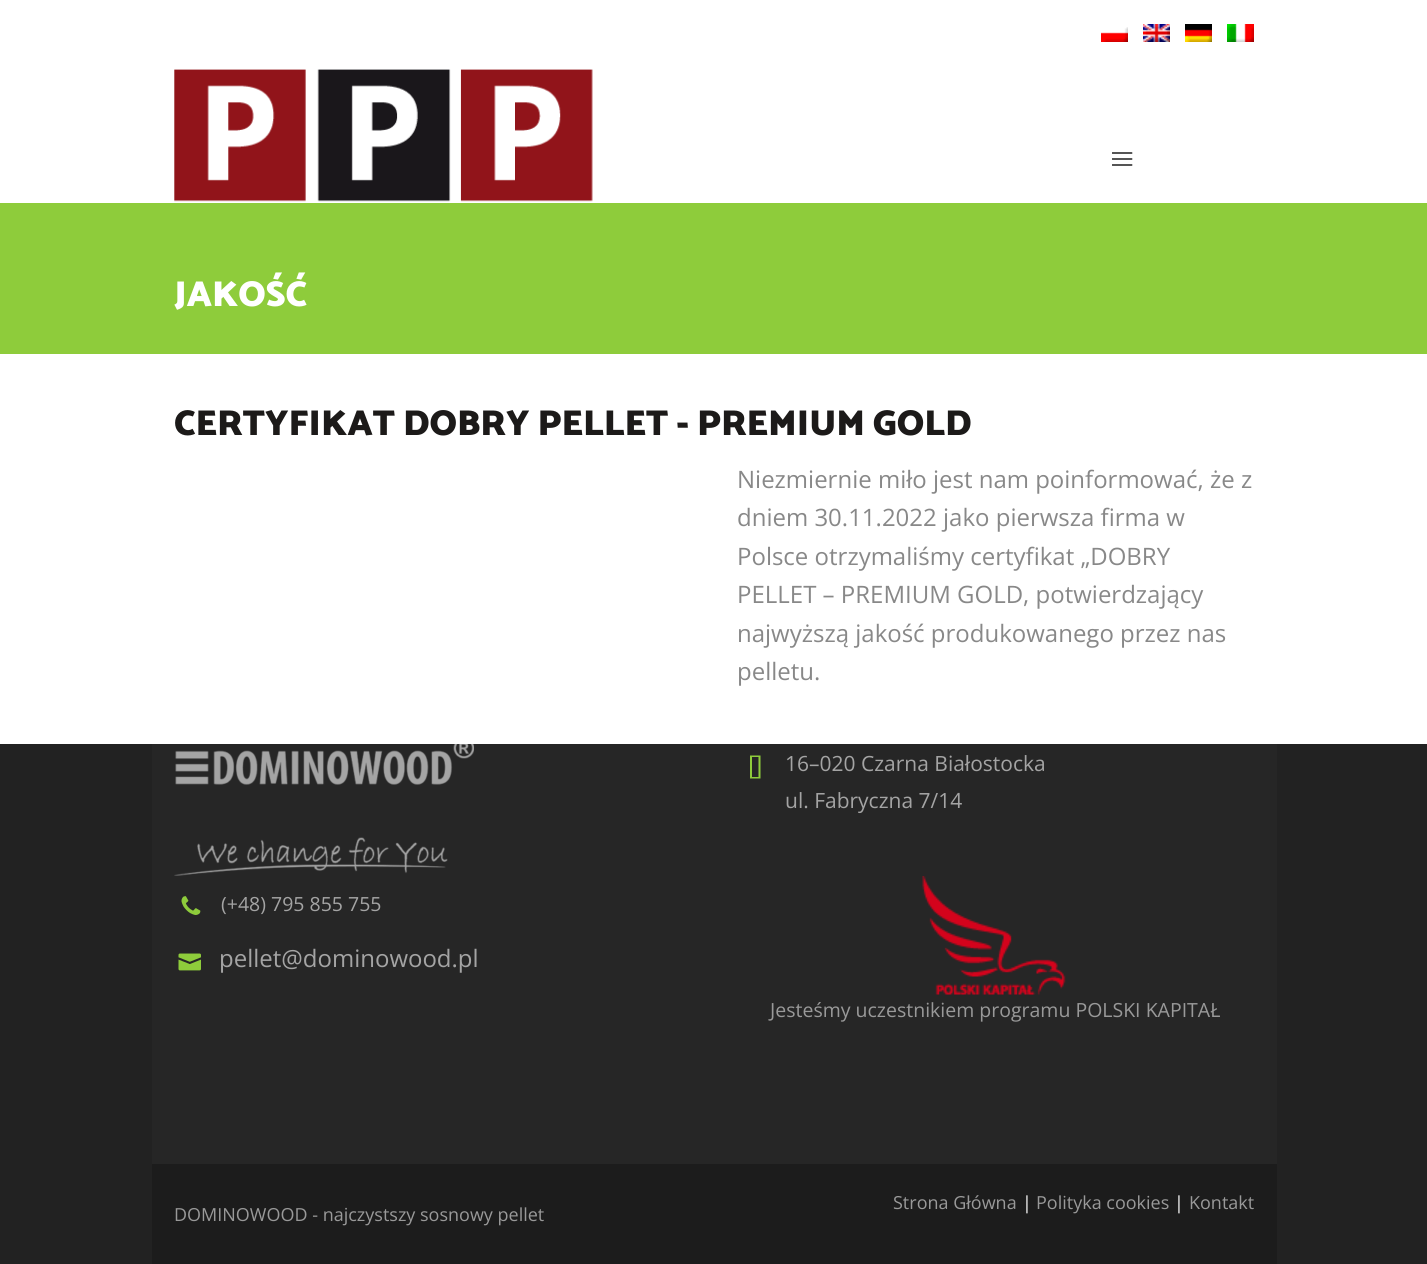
import math
import cairo

surface = cairo.ImageSurface(cairo.FORMAT_RGB24, 1427, 1264)
cr = cairo.Context(surface)
options = cairo.FontOptions()
options.set_hint_metrics(cairo.HINT_METRICS_OFF)
options.set_hint_style(cairo.HINT_STYLE_NONE)
cr.set_font_options(options)
cr.set_miter_limit(4)


def rgb(code):
    cr.set_source_rgb(*(v / 255 for v in bytes.fromhex(code[-6:])))


def image(path, x, y, w, h):
    cr.save()
    cr.set_source_surface(cairo.ImageSurface.create_from_png(path), x, y)
    cr.rectangle(x, y, w, h)
    cr.fill()
    cr.restore()


rgb("#222222")
cr.paint()
rgb("#ffffff")
cr.rectangle(0, 0, 1427, 744)
cr.fill()
image("img/1.png", 1101, 27, 27, 15)
image("img/2.png", 1143, 24, 27, 18)
image("img/3.png", 1185, 24, 27, 18)
image("img/4.png", 1227, 24, 27, 18)
image("img/5.png", 174, 69, 419, 133)
image("img/6.png", 1112, 152, 21, 14)
rgb("#8ecc3b")
cr.rectangle(0, 203, 1427, 151)
cr.fill()
rgb("#262626")
cr.rectangle(152, 744, 1125, 420)
cr.fill()
image("img/7.png", 174, 744, 300, 132)
rgb("#8ecc3b")
cr.new_path()
cr.move_to(752, 777)
cr.line_to(758.5, 777)
cr.line_to(758.5, 757)
cr.line_to(752, 757)
cr.close_path()
cr.move_to(750, 778.5)
cr.line_to(750, 755.5)
cr.line_to(760.5, 755.5)
cr.line_to(760.5, 778.5)
cr.close_path()
cr.fill()
image("img/8.png", 181, 896, 20, 19)
image("img/9.png", 178, 953, 23, 18)
image("img/10.png", 922, 876, 144, 119)
rgb("#1c1c1c")
cr.rectangle(152, 1164, 1125, 100)
cr.fill()
cr.select_font_face("Catamaran Thin")
cr.set_font_size(36)
rgb("#ffffff")
cr.move_to(174, 306)
cr.show_text("JAKOŚĆ")
rgb("#1c1a19")
cr.move_to(174, 435)
cr.show_text("CERTYFIKAT DOBRY PELLET - PREMIUM GOLD")
cr.select_font_face("Open Sans")
cr.set_font_size(24)
rgb("#888888")
for x, y, s in [
    (737, 488, "Niezmiernie miło jest nam poinformować, że z"),
    (737, 526, "dniem 30.11.2022 jako pierwsza firma w"),
    (737, 565, "Polsce otrzymaliśmy certyfikat „DOBRY"),
    (737, 603, "PELLET – PREMIUM GOLD, potwierdzający"),
    (737, 642, "najwyższą jakość produkowanego przez nas"),
    (737, 680, "pelletu."),
]:
    cr.move_to(x, y)
    cr.show_text(s)
cr.set_font_size(21)
rgb("#a4a4a4")
cr.move_to(785, 771)
cr.show_text("16–020 Czarna Białostocka")
cr.move_to(785, 808)
cr.show_text("ul. Fabryczna 7/14")
cr.set_font_size(19.5)
cr.move_to(221, 911)
cr.show_text("(+48) 795 855 755")
cr.set_font_size(24)
cr.move_to(219, 967)
cr.show_text("pellet@dominowood.pl")
cr.set_font_size(19.5)
rgb("#999999")
cr.move_to(770, 1017)
cr.show_text("Jesteśmy uczestnikiem programu POLSKI KAPITAŁ")
cr.set_font_size(18)
cr.move_to(893, 1209)
cr.show_text("Strona Główna")
rgb("#ffffff")
cr.move_to(1022, 1209)
cr.show_text("|")
rgb("#999999")
cr.move_to(1036, 1209)
cr.show_text("Polityka cookies")
rgb("#ffffff")
cr.move_to(1174, 1209)
cr.show_text("|")
rgb("#999999")
cr.move_to(1189, 1209)
cr.show_text("Kontakt")
cr.move_to(174, 1221)
cr.show_text("DOMINOWOOD - najczystszy sosnowy pellet")
surface.write_to_png("page.png")
